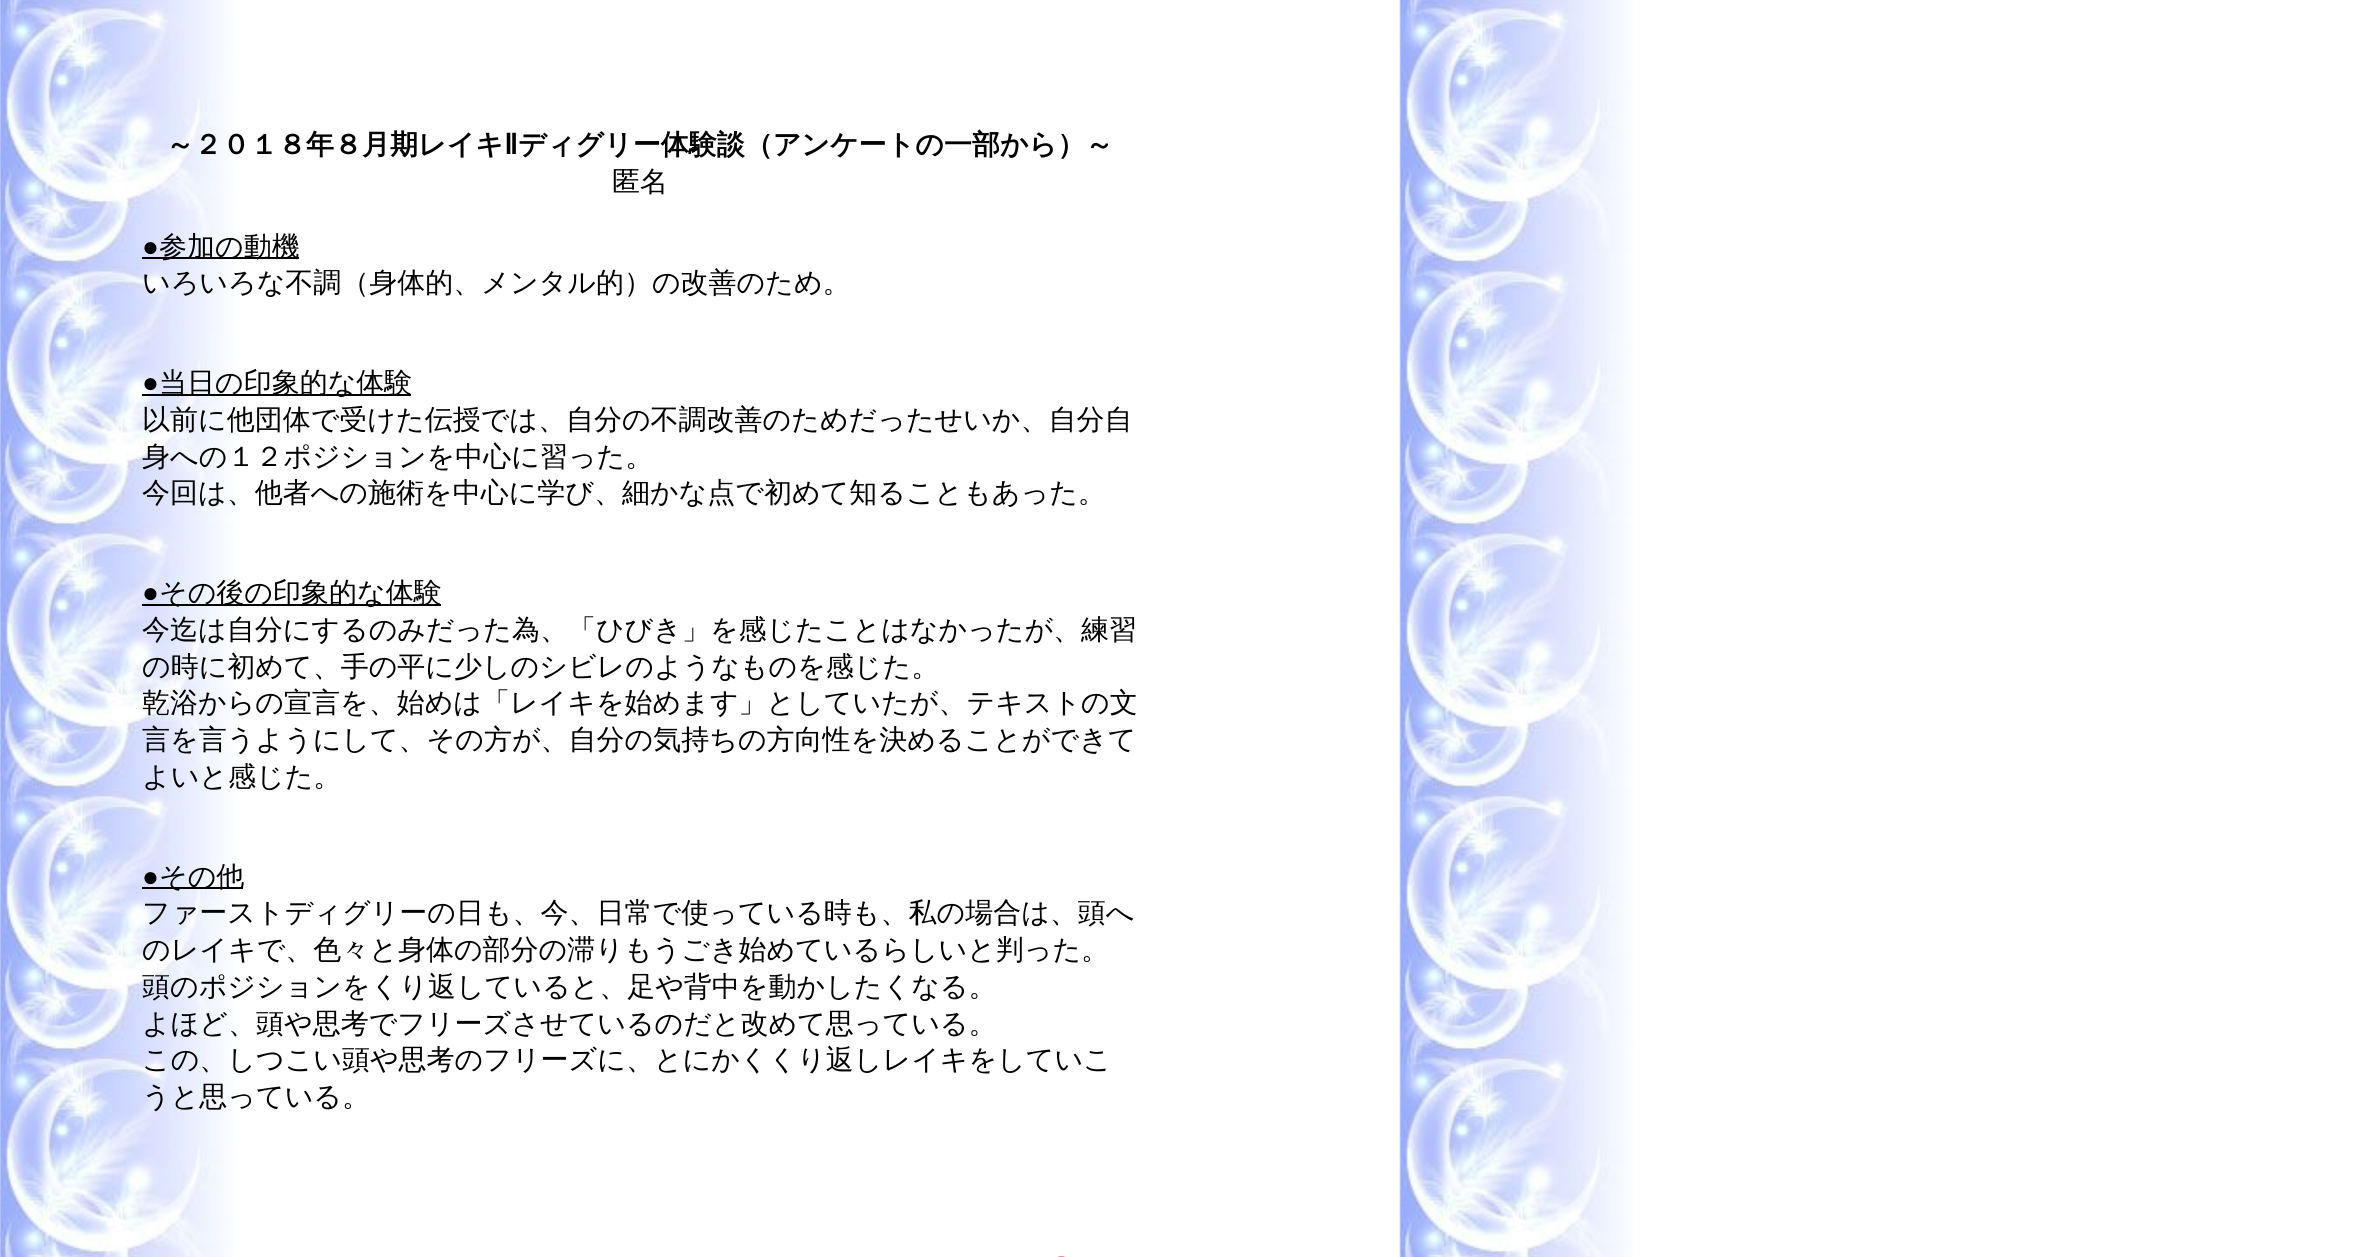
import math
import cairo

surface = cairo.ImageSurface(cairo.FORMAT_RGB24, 2378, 1257)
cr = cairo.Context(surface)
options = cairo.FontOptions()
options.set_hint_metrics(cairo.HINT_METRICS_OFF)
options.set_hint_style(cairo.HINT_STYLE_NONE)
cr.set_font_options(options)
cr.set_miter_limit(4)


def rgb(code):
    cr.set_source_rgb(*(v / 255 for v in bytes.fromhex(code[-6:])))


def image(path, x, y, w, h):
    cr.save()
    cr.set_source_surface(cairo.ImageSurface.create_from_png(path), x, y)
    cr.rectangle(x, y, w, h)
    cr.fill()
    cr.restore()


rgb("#ffffff")
cr.paint()
image("img/1.png", 0, 0, 1634, 1257)
for x, y, w, h, color in [
    (142, 257, 157, 2, "#000000"),
    (142, 394, 269, 2, "#000000"),
    (142, 604, 299, 2, "#000000"),
    (142, 887, 101, 2, "#000000"),
]:
    rgb(color)
    cr.rectangle(x, y, w, h)
    cr.fill()
image("img/2.png", 1057, 1256, 9, 1)
cr.select_font_face("WenQuanYi Zen Hei", cairo.FONT_SLANT_NORMAL, cairo.FONT_WEIGHT_BOLD)
cr.set_font_size(28)
cr.move_to(166, 154)
cr.show_text("～２０１８年８月期レイキ")
cr.select_font_face("DejaVu Sans", cairo.FONT_SLANT_NORMAL, cairo.FONT_WEIGHT_BOLD)
cr.move_to(504, 154)
cr.show_text("Ⅱ")
cr.select_font_face("WenQuanYi Zen Hei", cairo.FONT_SLANT_NORMAL, cairo.FONT_WEIGHT_BOLD)
cr.move_to(518, 154)
cr.show_text("ディグリー体験談（アンケートの一部から）～")
cr.select_font_face("WenQuanYi Zen Hei Medium")
cr.move_to(612, 191)
cr.show_text("匿名")
cr.select_font_face("Liberation Serif")
cr.move_to(142, 256)
cr.show_text("●")
cr.select_font_face("WenQuanYi Zen Hei Medium")
cr.move_to(159, 256)
cr.show_text("参加の動機")
cr.move_to(142, 292)
cr.show_text("いろいろな不調（身体的、メンタル的）の改善のため。")
cr.select_font_face("Liberation Serif")
cr.move_to(142, 392)
cr.show_text("●")
cr.select_font_face("WenQuanYi Zen Hei Medium")
for x, y, s in [
    (159, 392, "当日の印象的な体験"),
    (142, 429, "以前に他団体で受けた伝授では、自分の不調改善のためだったせいか、自分自"),
    (142, 466, "身への１２ポジションを中心に習った。"),
    (142, 502, "今回は、他者への施術を中心に学び、細かな点で初めて知ることもあった。"),
]:
    cr.move_to(x, y)
    cr.show_text(s)
cr.select_font_face("Liberation Serif")
cr.move_to(142, 602)
cr.show_text("●")
cr.select_font_face("WenQuanYi Zen Hei Medium")
for x, y, s in [
    (159, 602, "その後の印象的な体験"),
    (142, 639, "今迄は自分にするのみだった為、「ひびき」を感じたことはなかったが、練習"),
    (142, 676, "の時に初めて、手の平に少しのシビレのようなものを感じた。"),
    (142, 712, "乾浴からの宣言を、始めは「レイキを始めます」としていたが、テキストの文"),
    (142, 749, "言を言うようにして、その方が、自分の気持ちの方向性を決めることができて"),
    (142, 786, "よいと感じた。"),
]:
    cr.move_to(x, y)
    cr.show_text(s)
cr.select_font_face("Liberation Serif")
cr.move_to(142, 886)
cr.show_text("●")
cr.select_font_face("WenQuanYi Zen Hei Medium")
for x, y, s in [
    (159, 886, "その他"),
    (142, 922, "ファーストディグリーの日も、今、日常で使っている時も、私の場合は、頭へ"),
    (142, 959, "のレイキで、色々と身体の部分の滞りもうごき始めているらしいと判った。"),
    (142, 996, "頭のポジションをくり返していると、足や背中を動かしたくなる。"),
    (142, 1033, "よほど、頭や思考でフリーズさせているのだと改めて思っている。"),
    (142, 1069, "この、しつこい頭や思考のフリーズに、とにかくくり返しレイキをしていこ"),
    (142, 1106, "うと思っている。"),
]:
    cr.move_to(x, y)
    cr.show_text(s)
surface.write_to_png("page.png")
